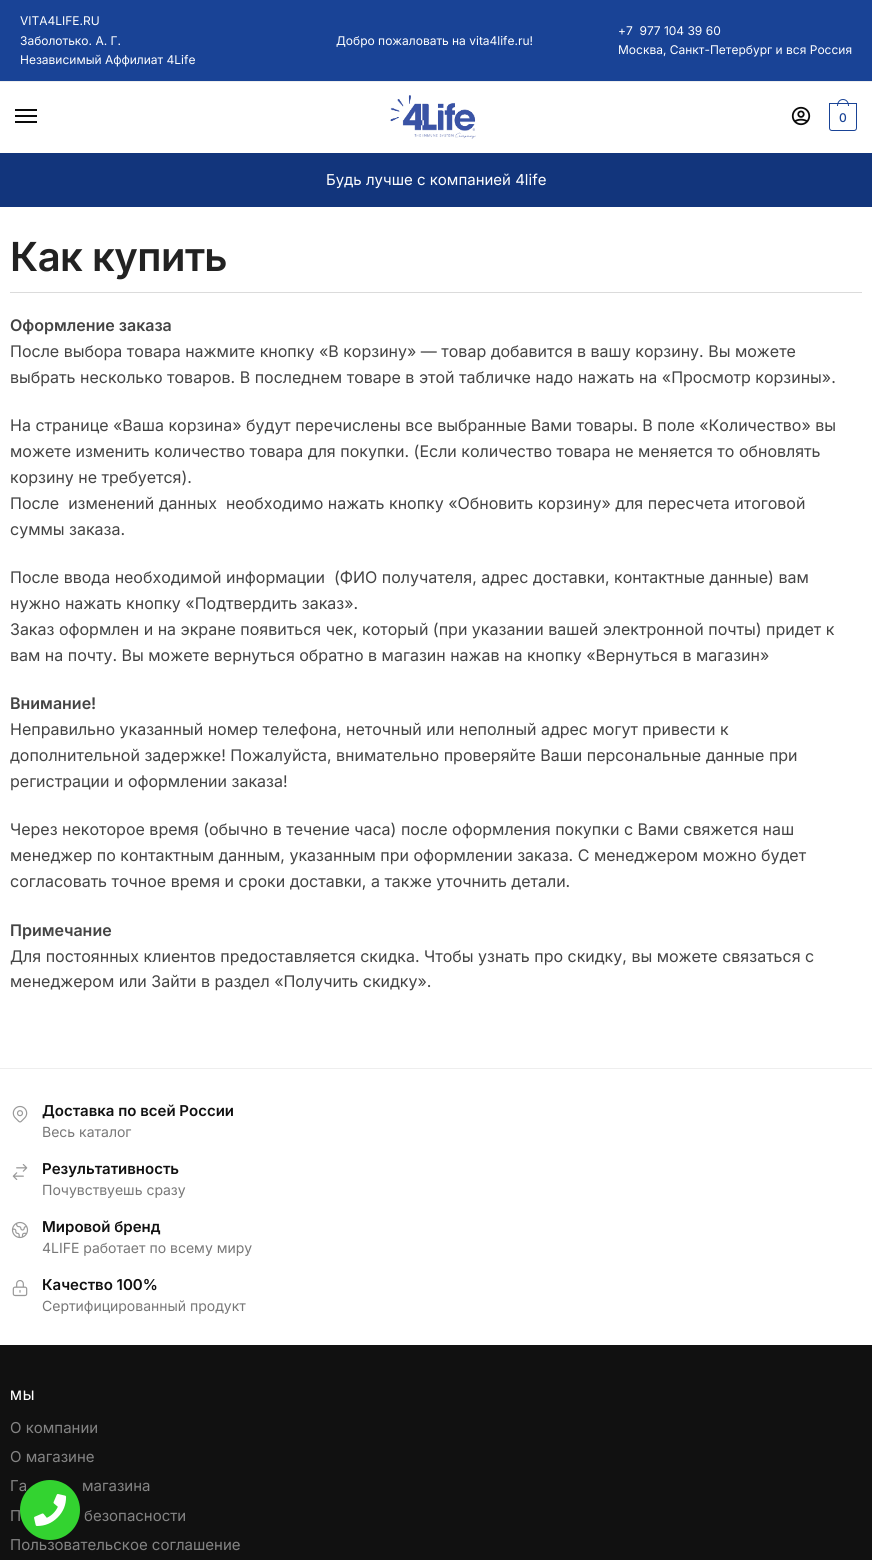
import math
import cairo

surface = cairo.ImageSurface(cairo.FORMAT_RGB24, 872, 1560)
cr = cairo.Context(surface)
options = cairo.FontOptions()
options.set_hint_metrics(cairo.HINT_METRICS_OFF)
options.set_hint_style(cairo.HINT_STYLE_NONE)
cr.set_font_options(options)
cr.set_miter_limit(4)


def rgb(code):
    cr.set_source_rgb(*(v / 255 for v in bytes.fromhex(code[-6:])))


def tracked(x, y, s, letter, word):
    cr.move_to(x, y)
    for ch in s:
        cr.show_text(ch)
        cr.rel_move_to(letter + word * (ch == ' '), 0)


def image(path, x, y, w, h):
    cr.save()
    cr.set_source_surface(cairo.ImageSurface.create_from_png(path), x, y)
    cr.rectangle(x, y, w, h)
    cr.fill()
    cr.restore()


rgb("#ffffff")
cr.paint()
for x, y, w, h, color in [
    (0, 0, 872, 81, "#194396"),
    (0, 81, 872, 1, "#eeeeee"),
    (15, 109, 22, 2, "#0a0a0a"),
    (15, 115, 22, 2, "#0a0a0a"),
    (15, 121, 22, 2, "#0a0a0a"),
]:
    rgb(color)
    cr.rectangle(x, y, w, h)
    cr.fill()
image("img/1.png", 390, 95, 86, 44)
image("img/2.png", 791, 106, 20, 20)
cr.new_path()
cr.move_to(829.5, 103.5)
cr.line_to(856.5, 103.5)
cr.line_to(856.5, 128)
cr.curve_to(856.5, 129.5, 855.5, 130.5, 854, 130.5)
cr.line_to(832, 130.5)
cr.curve_to(830.5, 130.5, 829.5, 129.5, 829.5, 128)
cr.close_path()
rgb("#194396")
cr.set_line_width(1)
cr.stroke()
cr.set_fill_rule(cairo.FILL_RULE_EVEN_ODD)
cr.new_path()
cr.move_to(843, 99)
cr.curve_to(847, 99, 849, 102.5, 849, 106)
cr.line_to(837, 106)
cr.curve_to(837, 102.5, 839, 99, 843, 99)
cr.close_path()
cr.move_to(843, 100)
cr.curve_to(846.5, 100, 848, 103, 848, 106)
cr.line_to(838, 106)
cr.curve_to(838, 103, 839.5, 100, 843, 100)
cr.close_path()
cr.fill()
for x, y, w, h, color in [
    (0, 153, 872, 54, "#12357c"),
    (10, 292, 852, 1, "#dbdbdb"),
    (0, 1068, 872, 1, "#eeeeee"),
]:
    rgb(color)
    cr.rectangle(x, y, w, h)
    cr.fill()
image("img/3.png", 12, 1105, 16, 18)
image("img/4.png", 12, 1164, 16, 16)
image("img/5.png", 11, 1221, 18, 18)
image("img/6.png", 12, 1280, 16, 17)
rgb("#111111")
cr.rectangle(0, 1345, 872, 215)
cr.fill()
cr.select_font_face("Inter")
cr.set_font_size(12)
rgb("#ffffff")
for x, y, s in [
    (20, 25, "VITA4LIFE.RU"),
    (20, 45, "Заболотько. А. Г."),
    (20, 64, "Независимый Аффилиат 4Life"),
    (336, 45, "Добро пожаловать на vita4life.ru!"),
    (618, 35, "+7  977 104 39 60"),
    (618, 54, "Москва, Санкт-Петербург и вся Россия"),
]:
    cr.move_to(x, y)
    cr.show_text(s)
cr.select_font_face("Inter Medium")
rgb("#194396")
tracked(839, 122, "0", -1, 0)
cr.select_font_face("Inter")
cr.set_font_size(15)
rgb("#ffffff")
cr.move_to(326, 185)
cr.show_text("Будь лучше с компанией 4life")
cr.select_font_face("Inter SemiBold")
cr.set_font_size(40)
rgb("#222222")
tracked(10, 271, "Как купить", -0.5, 0)
cr.set_font_size(16)
rgb("#444444")
cr.move_to(10, 331)
cr.show_text("Оформление заказа")
cr.select_font_face("Inter")
for x, y, s in [
    (10, 357, "После выбора товара нажмите кнопку «В корзину» — товар добавится в вашу корзину. Вы можете"),
    (10, 383, "выбрать несколько товаров. В последнем товаре в этой табличке надо нажать на «Просмотр корзины»."),
    (10, 431, "На странице «Ваша корзина» будут перечислены все выбранные Вами товары. В поле «Количество» вы"),
    (10, 457, "можете изменить количество товара для покупки. (Если количество товара не меняется то обновлять"),
    (10, 483, "корзину не требуется)."),
    (10, 509, "После  изменений данных  необходимо нажать кнопку «Обновить корзину» для пересчета итоговой"),
    (10, 535, "суммы заказа."),
    (10, 583, "После ввода необходимой информации  (ФИО получателя, адрес доставки, контактные данные) вам"),
    (10, 609, "нужно нажать кнопку «Подтвердить заказ»."),
    (10, 635, "Заказ оформлен и на экране появиться чек, который (при указании вашей электронной почты) придет к"),
    (10, 661, "вам на почту. Вы можете вернуться обратно в магазин нажав на кнопку «Вернуться в магазин»"),
]:
    cr.move_to(x, y)
    cr.show_text(s)
cr.select_font_face("Inter SemiBold")
cr.move_to(10, 709)
cr.show_text("Внимание!")
cr.select_font_face("Inter")
for x, y, s in [
    (10, 735, "Неправильно указанный номер телефона, неточный или неполный адрес могут привести к"),
    (10, 761, "дополнительной задержке! Пожалуйста, внимательно проверяйте Ваши персональные данные при"),
    (10, 787, "регистрации и оформлении заказа!"),
    (10, 835, "Через некоторое время (обычно в течение часа) после оформления покупки с Вами свяжется наш"),
    (10, 861, "менеджер по контактным данным, указанным при оформлении заказа. С менеджером можно будет"),
    (10, 887, "согласовать точное время и сроки доставки, а также уточнить детали."),
]:
    cr.move_to(x, y)
    cr.show_text(s)
cr.select_font_face("Inter SemiBold")
cr.move_to(10, 936)
cr.show_text("Примечание")
cr.select_font_face("Inter")
cr.move_to(10, 962)
cr.show_text("Для постоянных клиентов предоставляется скидка. Чтобы узнать про скидку, вы можете связаться с")
cr.move_to(10, 987)
cr.show_text("менеджером или Зайти в раздел «Получить скидку».")
cr.select_font_face("Inter SemiBold")
cr.set_font_size(15)
rgb("#111111")
cr.move_to(42, 1116)
cr.show_text("Доставка по всей России")
cr.select_font_face("Inter")
cr.set_font_size(14)
rgb("#777777")
cr.move_to(42, 1137)
cr.show_text("Весь каталог")
cr.select_font_face("Inter SemiBold")
cr.set_font_size(15)
rgb("#111111")
cr.move_to(42, 1174)
cr.show_text("Результативность")
cr.select_font_face("Inter")
cr.set_font_size(14)
rgb("#777777")
cr.move_to(42, 1195)
cr.show_text("Почувствуешь сразу")
cr.select_font_face("Inter SemiBold")
cr.set_font_size(15)
rgb("#111111")
cr.move_to(42, 1232)
cr.show_text("Мировой бренд")
cr.select_font_face("Inter")
cr.set_font_size(14)
rgb("#777777")
cr.move_to(42, 1253)
cr.show_text("4LIFE работает по всему миру")
cr.select_font_face("Inter SemiBold")
cr.set_font_size(15)
rgb("#111111")
cr.move_to(42, 1290)
cr.show_text("Качество 100%")
cr.select_font_face("Inter")
cr.set_font_size(14)
rgb("#777777")
cr.move_to(42, 1311)
cr.show_text("Сертифицированный продукт")
cr.select_font_face("Inter Medium")
cr.set_font_size(13)
rgb("#ffffff")
tracked(10, 1400, "МЫ", 1, 0)
cr.select_font_face("Inter")
cr.set_font_size(15)
rgb("#848484")
for x, y, s in [
    (10, 1433, "О компании"),
    (10, 1462, "О магазине"),
    (10, 1491, "Га"),
    (82, 1491, "магазина"),
    (10, 1521, "П"),
    (84, 1521, "безопасности"),
    (10, 1550, "Пользовательское соглашение"),
]:
    cr.move_to(x, y)
    cr.show_text(s)
rgb("#33d330")
cr.new_path()
cr.arc(50, 1510, 30, 0, 2 * math.pi)
cr.fill()
image("img/7.png", 34, 1494, 33, 32)
surface.write_to_png("page.png")
